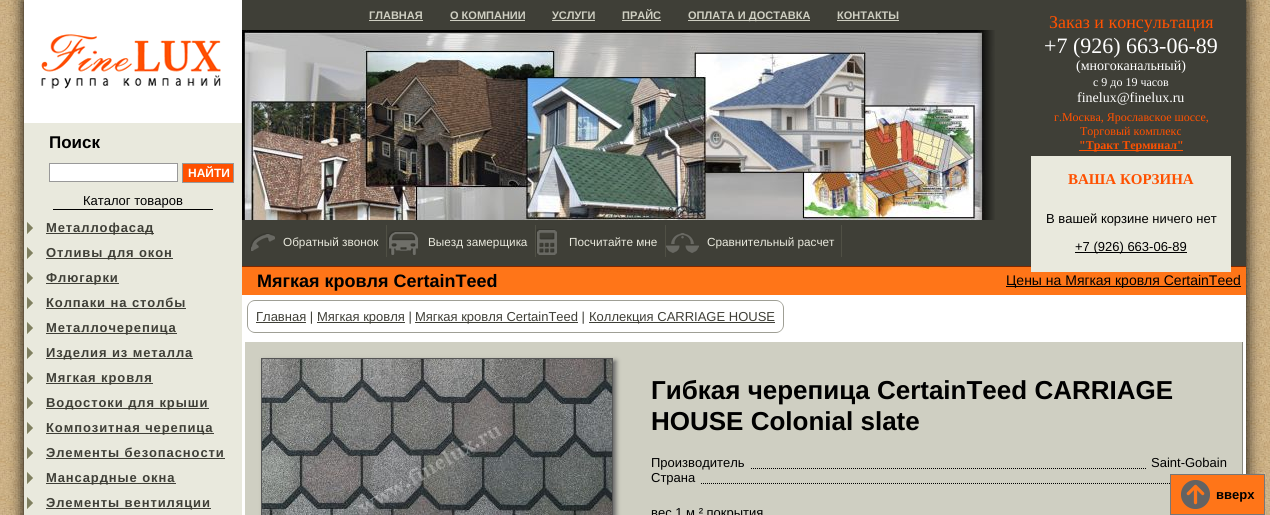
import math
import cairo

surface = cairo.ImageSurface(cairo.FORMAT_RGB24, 1270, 515)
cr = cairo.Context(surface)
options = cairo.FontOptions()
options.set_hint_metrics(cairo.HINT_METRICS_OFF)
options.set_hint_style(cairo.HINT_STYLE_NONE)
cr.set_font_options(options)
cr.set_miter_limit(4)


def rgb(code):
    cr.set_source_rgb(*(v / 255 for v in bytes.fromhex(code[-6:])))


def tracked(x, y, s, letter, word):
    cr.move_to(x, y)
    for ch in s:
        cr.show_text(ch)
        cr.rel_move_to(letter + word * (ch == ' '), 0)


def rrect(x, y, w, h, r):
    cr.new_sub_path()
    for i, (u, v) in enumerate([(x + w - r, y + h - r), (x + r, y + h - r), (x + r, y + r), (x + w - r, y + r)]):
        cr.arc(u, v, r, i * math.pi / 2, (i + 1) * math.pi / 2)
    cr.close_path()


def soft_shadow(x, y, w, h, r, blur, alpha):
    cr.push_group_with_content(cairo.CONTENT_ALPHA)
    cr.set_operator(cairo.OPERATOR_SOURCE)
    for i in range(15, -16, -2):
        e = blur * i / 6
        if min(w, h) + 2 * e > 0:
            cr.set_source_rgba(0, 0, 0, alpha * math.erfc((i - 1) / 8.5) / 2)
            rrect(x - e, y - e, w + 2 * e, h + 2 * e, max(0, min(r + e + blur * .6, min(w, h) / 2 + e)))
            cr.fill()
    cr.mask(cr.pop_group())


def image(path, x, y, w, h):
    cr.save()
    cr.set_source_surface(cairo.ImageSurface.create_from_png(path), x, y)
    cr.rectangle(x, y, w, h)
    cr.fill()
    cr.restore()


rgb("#ffffff")
cr.paint()
image("img/1.png", 0, 0, 1270, 515)
rgb("#000000")
soft_shadow(24, 0, 1222, 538, 0, 7.5, 1)
rgb("#e9e9dd")
cr.rectangle(24, 123, 218, 392)
cr.fill()
rgb("#ffffff")
cr.rectangle(24, 0, 218, 123)
cr.fill()
image("img/2.png", 41, 34, 180, 55)
cr.rectangle(49.5, 163.5, 128, 18)
cr.fill_preserve()
rgb("#999999")
cr.set_line_width(1)
cr.stroke()
rgb("#ff5000")
cr.rectangle(182.5, 163.5, 51, 19)
cr.fill_preserve()
rgb("#999999")
cr.stroke()
rgb("#000000")
cr.rectangle(53, 209, 160, 1)
cr.fill()
image("img/3.png", 27, 222, 6, 12)
rgb("#3f3f37")
cr.rectangle(46, 233, 108, 1)
cr.fill()
image("img/3.png", 27, 247, 6, 12)
cr.rectangle(46, 258, 127, 1)
cr.fill()
image("img/3.png", 27, 272, 6, 12)
cr.rectangle(46, 283, 73, 1)
cr.fill()
image("img/3.png", 27, 297, 6, 12)
cr.rectangle(46, 308, 140, 1)
cr.fill()
image("img/3.png", 27, 322, 6, 12)
cr.rectangle(46, 333, 131, 1)
cr.fill()
image("img/3.png", 27, 347, 6, 12)
cr.rectangle(46, 358, 147, 1)
cr.fill()
image("img/3.png", 27, 372, 6, 12)
cr.rectangle(46, 383, 107, 1)
cr.fill()
image("img/3.png", 27, 397, 6, 12)
cr.rectangle(46, 408, 163, 1)
cr.fill()
image("img/3.png", 27, 422, 6, 12)
cr.rectangle(46, 433, 168, 1)
cr.fill()
image("img/3.png", 27, 447, 6, 12)
cr.rectangle(46, 458, 179, 1)
cr.fill()
image("img/3.png", 27, 472, 6, 12)
cr.rectangle(46, 483, 130, 1)
cr.fill()
image("img/3.png", 27, 497, 6, 12)
for x, y, w, h, color in [
    (46, 508, 165, 1, "#3f3f37"),
    (242, 295, 1004, 220, "#ffffff"),
    (242, 0, 1004, 266, "#3f3f37"),
    (369, 20, 54, 1, "#cfcfc2"),
    (450, 20, 75, 1, "#cfcfc2"),
    (552, 20, 43, 1, "#cfcfc2"),
    (622, 20, 39, 1, "#cfcfc2"),
    (688, 20, 122, 1, "#cfcfc2"),
    (837, 20, 62, 1, "#cfcfc2"),
]:
    rgb(color)
    cr.rectangle(x, y, w, h)
    cr.fill()
image("img/4.png", 242, 30, 753, 190)
image("img/5.png", 977, 30, 18, 190)
for x, y, w, h, color in [
    (1079, 150, 104, 1, "#ff5100"),
    (242, 267, 1004, 28, "#ff7518"),
    (242, 266, 1004, 1, "#7f2800"),
    (1031, 156, 200, 116, "#e9e9dd"),
    (1075, 252, 112, 1, "#000000"),
    (1006, 286, 235, 1, "#000000"),
    (386, 225, 1, 32, "#505045"),
]:
    rgb(color)
    cr.rectangle(x, y, w, h)
    cr.fill()
image("img/6.png", 250, 233, 25, 18)
cr.rectangle(535, 225, 1, 32)
cr.fill()
image("img/7.png", 388, 231, 30, 24)
cr.rectangle(665, 225, 1, 32)
cr.fill()
image("img/8.png", 536, 229, 21, 26)
cr.rectangle(841, 225, 1, 32)
cr.fill()
image("img/9.png", 666, 233, 33, 20)
rgb("#9f9f95")
cr.set_fill_rule(cairo.FILL_RULE_EVEN_ODD)
cr.new_path()
cr.move_to(255, 300)
cr.line_to(306, 300)
cr.line_to(306, 333)
cr.line_to(255, 333)
cr.curve_to(251, 333, 247, 329, 247, 325)
cr.line_to(247, 308)
cr.curve_to(247, 304, 251, 300, 255, 300)
cr.close_path()
cr.move_to(255, 301)
cr.line_to(306, 301)
cr.line_to(306, 332)
cr.line_to(255, 332)
cr.curve_to(251, 332, 248, 329, 248, 325)
cr.line_to(248, 308)
cr.curve_to(248, 304, 251, 301, 255, 301)
cr.close_path()
cr.fill()
for x, y, w, h, color in [
    (306, 300, 283, 1, "#9f9f95"),
    (306, 332, 283, 1, "#9f9f95"),
    (256, 322, 50, 1, "#3f3f37"),
    (317, 322, 88, 1, "#3f3f37"),
    (415, 322, 163, 1, "#3f3f37"),
]:
    rgb(color)
    cr.rectangle(x, y, w, h)
    cr.fill()
rgb("#9f9f95")
cr.new_path()
cr.move_to(589, 300)
cr.line_to(776, 300)
cr.curve_to(780, 300, 784, 304, 784, 308)
cr.line_to(784, 325)
cr.curve_to(784, 329, 780, 333, 776, 333)
cr.line_to(589, 333)
cr.close_path()
cr.move_to(589, 301)
cr.line_to(776, 301)
cr.curve_to(780, 301, 783, 304, 783, 308)
cr.line_to(783, 325)
cr.curve_to(783, 329, 780, 332, 776, 332)
cr.line_to(589, 332)
cr.close_path()
cr.fill()
for x, y, w, h, color in [
    (589, 322, 186, 1, "#3f3f37"),
    (245, 342, 997, 173, "#cfcfc2"),
    (1242, 342, 1, 132, "#8a8a81"),
]:
    rgb(color)
    cr.rectangle(x, y, w, h)
    cr.fill()
rgb("#666666")
soft_shadow(264, 361, 352, 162, 0, 2.5, 1)
cr.rectangle(261.5, 358.5, 351, 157)
rgb("#555555")
cr.stroke()
image("img/10.png", 262, 359, 350, 156)
image("img/11.png", 751, 468, 395, 1)
image("img/12.png", 701, 483, 469, 1)
rgb("#ff7518")
cr.rectangle(1171, 475, 93, 39)
cr.fill()
image("img/13.png", 1181, 480, 29, 29)
cr.rectangle(1170.5, 474.5, 94, 40)
rgb("#777777")
cr.stroke()
cr.select_font_face("Liberation Sans", cairo.FONT_SLANT_NORMAL, cairo.FONT_WEIGHT_BOLD)
cr.set_font_size(17)
rgb("#000000")
cr.move_to(49, 148)
cr.show_text("Поиск")
cr.set_font_size(12)
rgb("#ffffff")
cr.move_to(188, 177)
cr.show_text("НАЙТИ")
cr.select_font_face("Liberation Sans")
cr.set_font_size(13)
rgb("#000000")
cr.move_to(83, 205)
cr.show_text("Каталог товаров")
cr.select_font_face("Liberation Sans", cairo.FONT_SLANT_NORMAL, cairo.FONT_WEIGHT_BOLD)
rgb("#3f3f37")
for x, y, s in [
    (46, 232, "Металлофасад"),
    (46, 257, "Отливы для окон"),
    (46, 282, "Флюгарки"),
    (46, 307, "Колпаки на столбы"),
    (46, 332, "Металлочерепица"),
    (46, 357, "Изделия из металла"),
    (46, 382, "Мягкая кровля"),
    (46, 407, "Водостоки для крыши"),
    (46, 432, "Композитная черепица"),
    (46, 457, "Элементы безопасности"),
    (46, 482, "Мансардные окна"),
    (46, 507, "Элементы вентиляции"),
]:
    tracked(x, y, s, 0.9, 0)
cr.set_font_size(11)
rgb("#cfcfc2")
for x, y, s in [
    (369, 19, "ГЛАВНАЯ"),
    (450, 19, "О КОМПАНИИ"),
    (552, 19, "УСЛУГИ"),
    (622, 19, "ПРАЙС"),
    (688, 19, "ОПЛАТА И ДОСТАВКА"),
    (837, 19, "КОНТАКТЫ"),
]:
    cr.move_to(x, y)
    cr.show_text(s)
cr.select_font_face("Liberation Serif")
cr.set_font_size(18)
rgb("#ff5100")
cr.move_to(1049, 28)
cr.show_text("Заказ и консультация")
cr.set_font_size(22)
rgb("#ffffff")
cr.move_to(1044, 53)
cr.show_text("+7 (926) 663-06-89")
cr.set_font_size(14)
cr.move_to(1076, 70)
cr.show_text("(многоканальный)")
cr.set_font_size(12)
cr.move_to(1093, 86)
cr.show_text("с 9 до 19 часов")
cr.set_font_size(14)
cr.move_to(1077, 102)
cr.show_text("finelux@finelux.ru")
cr.set_font_size(12)
rgb("#ff5100")
cr.move_to(1054, 121)
cr.show_text("г.Москва, Ярославское шоссе,")
cr.move_to(1080, 135)
cr.show_text("Торговый комплекс")
cr.select_font_face("Liberation Serif", cairo.FONT_SLANT_NORMAL, cairo.FONT_WEIGHT_BOLD)
cr.move_to(1079, 149)
cr.show_text("\"Тракт Терминал\"")
cr.set_font_size(15)
cr.move_to(1068, 184)
cr.show_text("ВАША КОРЗИНА")
cr.select_font_face("Liberation Sans")
cr.set_font_size(13)
rgb("#000000")
cr.move_to(1046, 223)
cr.show_text("В вашей корзине ничего нет")
cr.move_to(1075, 251)
cr.show_text("+7 (926) 663-06-89")
cr.select_font_face("Liberation Sans", cairo.FONT_SLANT_NORMAL, cairo.FONT_WEIGHT_BOLD)
cr.set_font_size(18)
cr.move_to(257, 287)
cr.show_text("Мягкая кровля CertainTeed")
cr.select_font_face("Liberation Sans")
cr.set_font_size(14)
cr.move_to(1006, 285)
cr.show_text("Цены на Мягкая кровля CertainTeed")
cr.set_font_size(11.75)
rgb("#e9e9dd")
for x, y, s in [
    (283, 246, "Обратный звонок"),
    (428, 246, "Выезд замерщика"),
    (569, 246, "Посчитайте мне"),
    (707, 246, "Сравнительный расчет"),
]:
    cr.move_to(x, y)
    cr.show_text(s)
cr.set_font_size(13)
rgb("#3f3f37")
for x, y, s in [
    (256, 321, "Главная |"),
    (317, 321, "Мягкая кровля |"),
    (415, 321, "Мягкая кровля CertainTeed |"),
    (589, 321, "Коллекция CARRIAGE HOUSE"),
]:
    cr.move_to(x, y)
    cr.show_text(s)
cr.select_font_face("Liberation Sans", cairo.FONT_SLANT_NORMAL, cairo.FONT_WEIGHT_BOLD)
cr.set_font_size(26)
rgb("#000000")
cr.move_to(651, 399)
cr.show_text("Гибкая черепица CertainTeed CARRIAGE")
cr.move_to(651, 430)
cr.show_text("HOUSE Colonial slate")
cr.select_font_face("Liberation Sans")
cr.set_font_size(13)
for x, y, s in [
    (651, 467, "Производитель"),
    (1151, 467, "Saint-Gobain"),
    (651, 482, "Страна"),
    (651, 517, "вес 1 м ² покрытия"),
]:
    cr.move_to(x, y)
    cr.show_text(s)
cr.select_font_face("Liberation Sans", cairo.FONT_SLANT_NORMAL, cairo.FONT_WEIGHT_BOLD)
cr.move_to(1216, 499)
cr.show_text("вверх")
surface.write_to_png("page.png")
